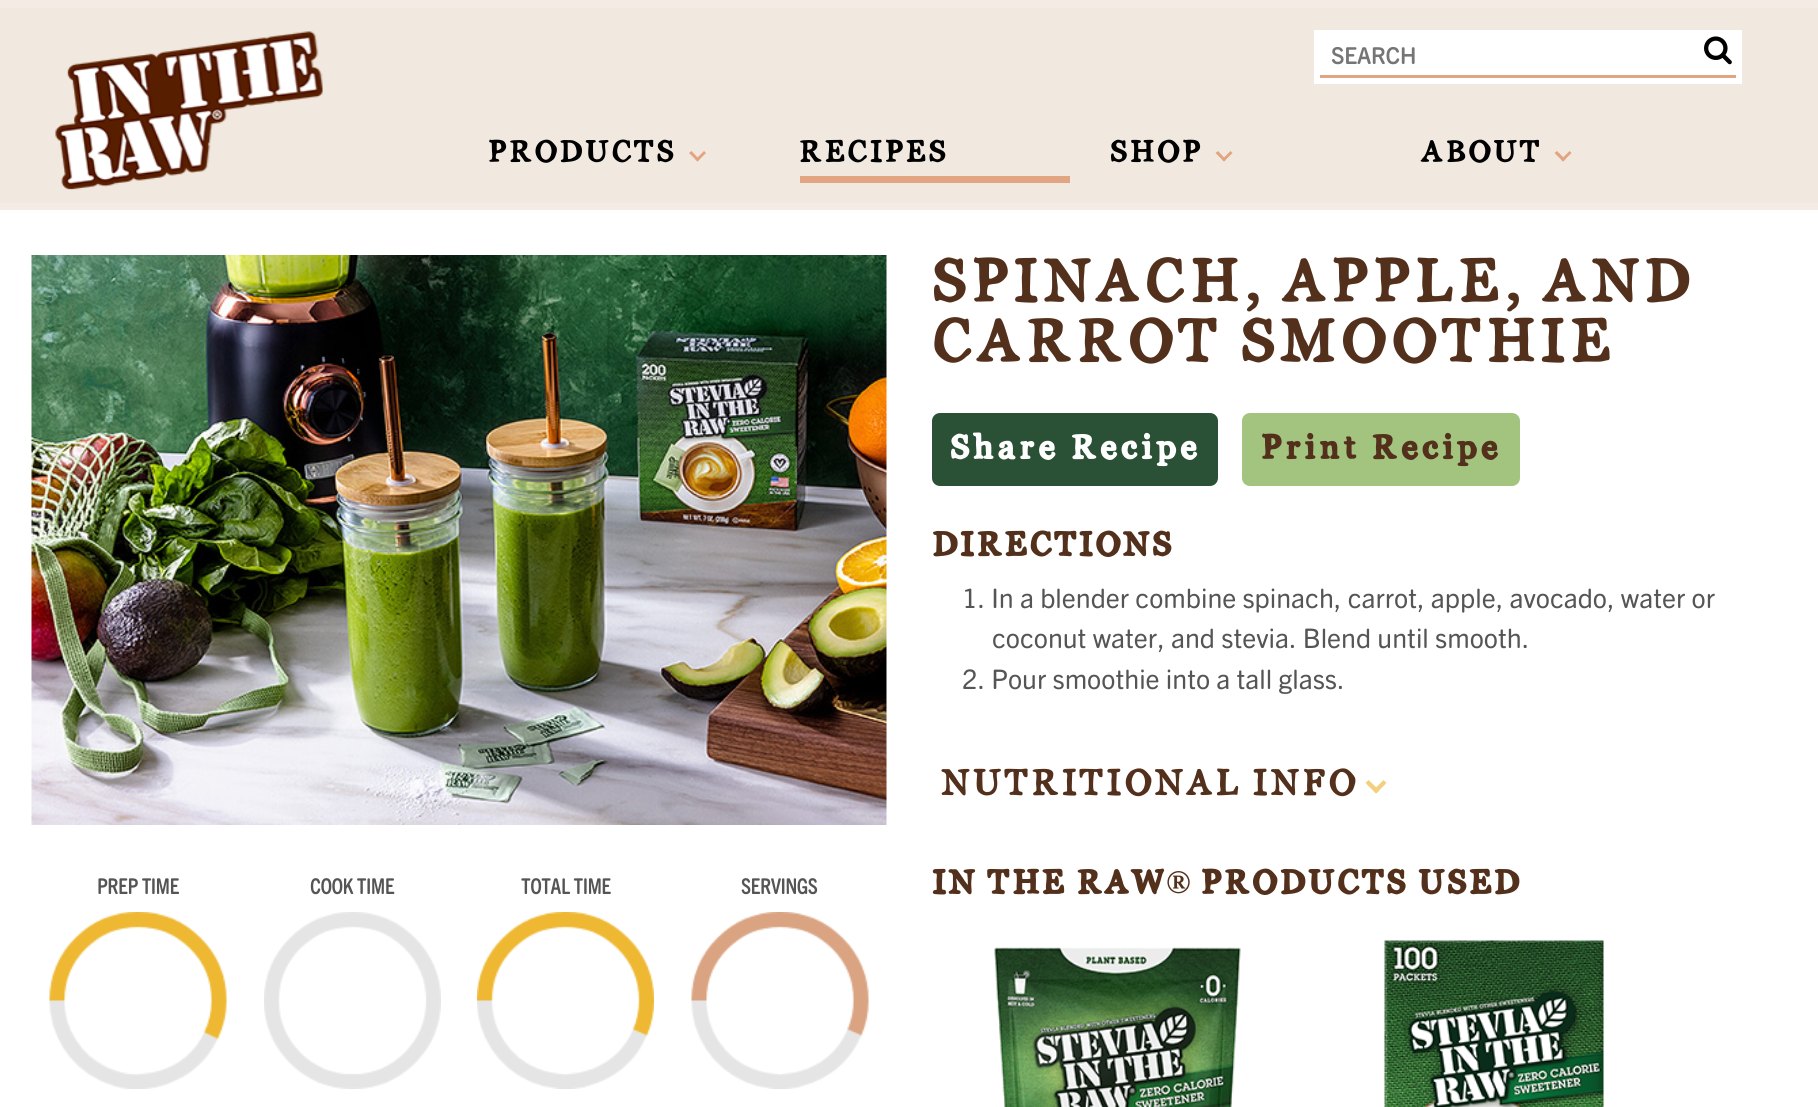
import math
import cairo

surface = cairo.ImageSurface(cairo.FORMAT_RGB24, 1818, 1107)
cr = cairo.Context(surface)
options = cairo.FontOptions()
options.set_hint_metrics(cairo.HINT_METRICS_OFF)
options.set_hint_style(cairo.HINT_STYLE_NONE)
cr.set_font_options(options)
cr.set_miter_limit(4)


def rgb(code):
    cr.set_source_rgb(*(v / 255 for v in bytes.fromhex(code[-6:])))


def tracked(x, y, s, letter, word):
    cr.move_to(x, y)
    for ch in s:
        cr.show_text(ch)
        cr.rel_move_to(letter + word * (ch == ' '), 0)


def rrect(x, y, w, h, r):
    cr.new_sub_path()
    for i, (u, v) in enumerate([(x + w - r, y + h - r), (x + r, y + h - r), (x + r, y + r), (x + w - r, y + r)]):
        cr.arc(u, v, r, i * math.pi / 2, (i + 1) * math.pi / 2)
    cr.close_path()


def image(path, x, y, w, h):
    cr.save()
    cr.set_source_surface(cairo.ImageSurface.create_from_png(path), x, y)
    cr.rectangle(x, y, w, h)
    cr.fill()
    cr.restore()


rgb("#ffffff")
cr.paint()
for x, y, w, h, color in [
    (0, 8, 1818, 195, "#f1e8e0"),
    (0, 0, 1818, 8, "#f4ece4"),
    (0, 203, 1818, 7, "#f4ece4"),
]:
    rgb(color)
    cr.rectangle(x, y, w, h)
    cr.fill()
image("img/1.png", 55, 31, 268, 159)
rgb("#ffffff")
cr.rectangle(1314, 30, 428, 54)
cr.fill()
rgb("#e1a581")
cr.rectangle(1320, 75, 416, 3)
cr.fill()
image("img/2.png", 1704, 36, 28, 29)
cr.new_path()
cr.move_to(704, 151)
cr.line_to(706, 153)
cr.line_to(697.5, 161.5)
cr.line_to(695.5, 159.5)
cr.close_path()
cr.fill()
cr.new_path()
cr.move_to(691.5, 151)
cr.line_to(699.5, 159.5)
cr.line_to(697.5, 161.5)
cr.line_to(689, 153)
cr.close_path()
cr.fill()
cr.rectangle(800, 176, 270, 7)
cr.fill()
cr.new_path()
cr.move_to(1230.5, 151)
cr.line_to(1232.5, 153)
cr.line_to(1224, 161.5)
cr.line_to(1222, 159.5)
cr.close_path()
cr.fill()
cr.new_path()
cr.move_to(1218, 151)
cr.line_to(1226, 159.5)
cr.line_to(1224, 161.5)
cr.line_to(1215.5, 153)
cr.close_path()
cr.fill()
cr.new_path()
cr.move_to(1569.5, 151)
cr.line_to(1571.5, 153)
cr.line_to(1563, 161.5)
cr.line_to(1561, 159.5)
cr.close_path()
cr.fill()
cr.new_path()
cr.move_to(1557, 151)
cr.line_to(1565.5, 159.5)
cr.line_to(1563, 161.5)
cr.line_to(1554.5, 153)
cr.close_path()
cr.fill()
image("img/3.png", 31, 255, 856, 570)
image("img/4.png", 49, 912, 178, 177)
image("img/5.png", 264, 912, 177, 177)
image("img/6.png", 477, 912, 177, 177)
image("img/7.png", 691, 912, 178, 177)
rgb("#2a5135")
rrect(932, 413, 286, 73, 8)
cr.fill()
rgb("#a3c47f")
rrect(1242, 413, 278, 73, 8)
cr.fill()
rgb("#f3d080")
cr.new_path()
cr.move_to(1383.5, 780)
cr.line_to(1386.5, 783)
cr.line_to(1376, 793.5)
cr.line_to(1373, 790.5)
cr.close_path()
cr.fill()
cr.new_path()
cr.move_to(1368.5, 780)
cr.line_to(1379.5, 790.5)
cr.line_to(1376, 793.5)
cr.line_to(1365.5, 783)
cr.close_path()
cr.fill()
image("img/8.png", 994, 947, 247, 160)
image("img/9.png", 1384, 940, 220, 167)
cr.select_font_face("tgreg", cairo.FONT_SLANT_NORMAL, cairo.FONT_WEIGHT_BOLD)
cr.set_font_size(22.5)
rgb("#757575")
cr.move_to(1331, 64)
cr.show_text("SEARCH")
cr.select_font_face("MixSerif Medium")
cr.set_font_size(30)
rgb("#000000")
for x, y, s in [
    (488, 161, "PRODUCTS"),
    (799, 161, "RECIPES"),
    (1110, 161, "SHOP"),
    (1421, 161, "ABOUT"),
]:
    cr.move_to(x, y)
    cr.show_text(s)
cr.select_font_face("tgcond", cairo.FONT_SLANT_NORMAL, cairo.FONT_WEIGHT_BOLD)
cr.set_font_size(21)
rgb("#555555")
for x, y, s in [
    (97, 894, "PREP TIME"),
    (310, 894, "COOK TIME"),
    (521, 894, "TOTAL TIME"),
    (741, 894, "SERVINGS"),
]:
    cr.move_to(x, y)
    cr.show_text(s)
cr.select_font_face("MixSerif Medium")
cr.set_font_size(60)
rgb("#53301c")
cr.move_to(932, 300)
cr.show_text("SPINACH, APPLE, AND")
cr.move_to(932, 360)
cr.show_text("CARROT SMOOTHIE")
cr.select_font_face("MixSerif", cairo.FONT_SLANT_NORMAL, cairo.FONT_WEIGHT_BOLD)
cr.set_font_size(33)
rgb("#ffffff")
tracked(950, 458, "Share Recipe", 1.5, 0)
rgb("#53301c")
tracked(1261, 458, "Print Recipe", 1.5, 0)
cr.move_to(932, 555)
cr.show_text("DIRECTIONS")
cr.select_font_face("tgreg")
cr.set_font_size(27)
rgb("#555555")
for x, y, s in [
    (962, 608, "1. In a blender combine spinach, carrot, apple, avocado, water or"),
    (992, 648, "coconut water, and stevia. Blend until smooth."),
    (962, 689, "2. Pour smoothie into a tall glass."),
]:
    cr.move_to(x, y)
    cr.show_text(s)
cr.select_font_face("MixSerif Medium")
cr.set_font_size(36)
rgb("#53301c")
cr.move_to(941, 794)
cr.show_text("NUTRITIONAL INFO")
cr.select_font_face("MixSerif", cairo.FONT_SLANT_NORMAL, cairo.FONT_WEIGHT_BOLD)
cr.set_font_size(33)
cr.move_to(932, 893)
cr.show_text("IN THE RAW")
cr.select_font_face("Liberation Serif", cairo.FONT_SLANT_NORMAL, cairo.FONT_WEIGHT_BOLD)
cr.move_to(1166, 893)
cr.show_text("®")
cr.select_font_face("MixSerif", cairo.FONT_SLANT_NORMAL, cairo.FONT_WEIGHT_BOLD)
cr.move_to(1201, 893)
cr.show_text("PRODUCTS USED")
surface.write_to_png("page.png")
